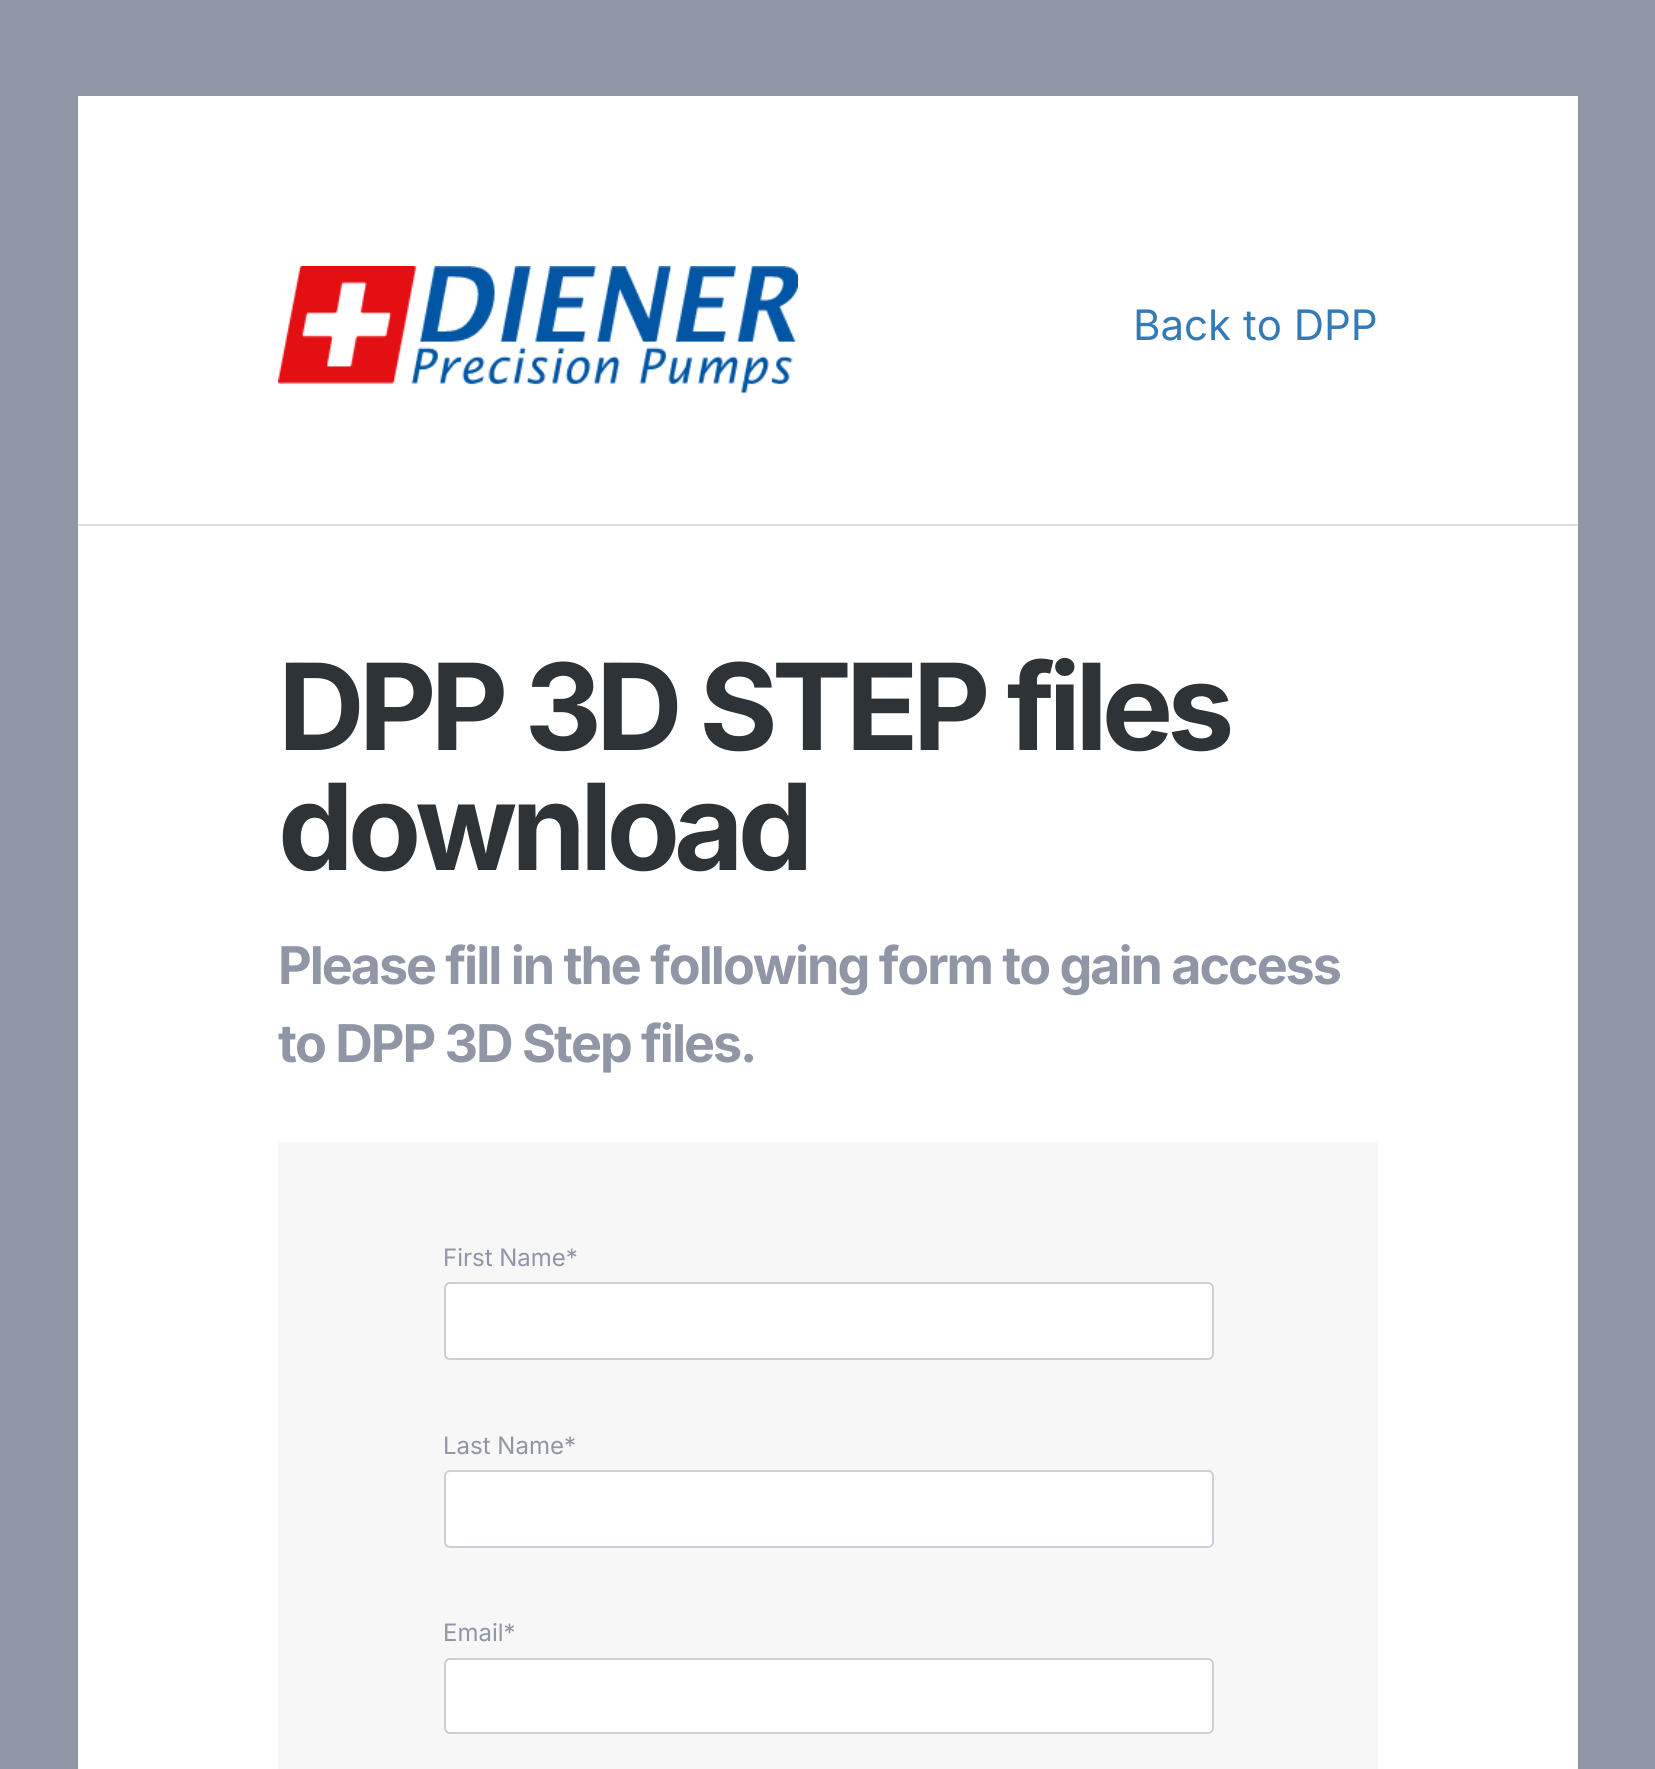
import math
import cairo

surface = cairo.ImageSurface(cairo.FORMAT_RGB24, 1655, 1769)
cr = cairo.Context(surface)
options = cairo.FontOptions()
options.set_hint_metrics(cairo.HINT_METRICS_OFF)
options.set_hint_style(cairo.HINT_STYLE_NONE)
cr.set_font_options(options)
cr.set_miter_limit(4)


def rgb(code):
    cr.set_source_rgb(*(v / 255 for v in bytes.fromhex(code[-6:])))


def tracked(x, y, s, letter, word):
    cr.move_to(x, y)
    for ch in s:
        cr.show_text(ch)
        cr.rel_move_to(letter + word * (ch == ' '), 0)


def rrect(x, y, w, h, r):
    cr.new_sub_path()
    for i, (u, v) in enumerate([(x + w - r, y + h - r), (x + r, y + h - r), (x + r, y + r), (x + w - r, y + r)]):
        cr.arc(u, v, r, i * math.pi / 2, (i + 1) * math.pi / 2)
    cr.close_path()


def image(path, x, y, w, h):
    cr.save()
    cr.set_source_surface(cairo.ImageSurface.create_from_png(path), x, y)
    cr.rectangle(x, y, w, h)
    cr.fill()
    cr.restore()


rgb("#9196a7")
cr.paint()
rgb("#ffffff")
cr.rectangle(78, 96, 1500, 428)
cr.fill()
rgb("#e0e0e0")
cr.rectangle(78, 524, 1500, 2)
cr.fill()
image("img/1.png", 278, 266, 520, 127)
rgb("#ffffff")
cr.rectangle(78, 526, 1500, 1243)
cr.fill()
rgb("#f7f7f7")
cr.rectangle(278, 1142, 1100, 627)
cr.fill()
rgb("#ffffff")
rrect(445, 1283, 768, 76, 5)
cr.fill_preserve()
rgb("#cdcfd8")
cr.stroke()
rgb("#ffffff")
rrect(445, 1471, 768, 76, 5)
cr.fill_preserve()
rgb("#cdcfd8")
cr.stroke()
rgb("#ffffff")
rrect(445, 1659, 768, 74, 5)
cr.fill_preserve()
rgb("#cdcfd8")
cr.stroke()
cr.select_font_face("Inter")
cr.set_font_size(42)
rgb("#337ab7")
cr.move_to(1133, 340)
cr.show_text("Back to DPP")
cr.select_font_face("Inter", cairo.FONT_SLANT_NORMAL, cairo.FONT_WEIGHT_BOLD)
cr.set_font_size(120)
rgb("#2d3336")
tracked(278, 750, "DPP 3D STEP files", -6, 0)
tracked(278, 870, "download", -6, 0)
cr.set_font_size(52)
rgb("#9196a7")
tracked(278, 984, "Please fill in the following form to gain access", -2, 0)
tracked(278, 1062, "to DPP 3D Step files.", -2, 0)
cr.select_font_face("Inter")
cr.set_font_size(24)
for x, y, s in [
    (443, 1266, "First Name*"),
    (443, 1454, "Last Name*"),
    (443, 1641, "Email*"),
]:
    cr.move_to(x, y)
    cr.show_text(s)
surface.write_to_png("page.png")
